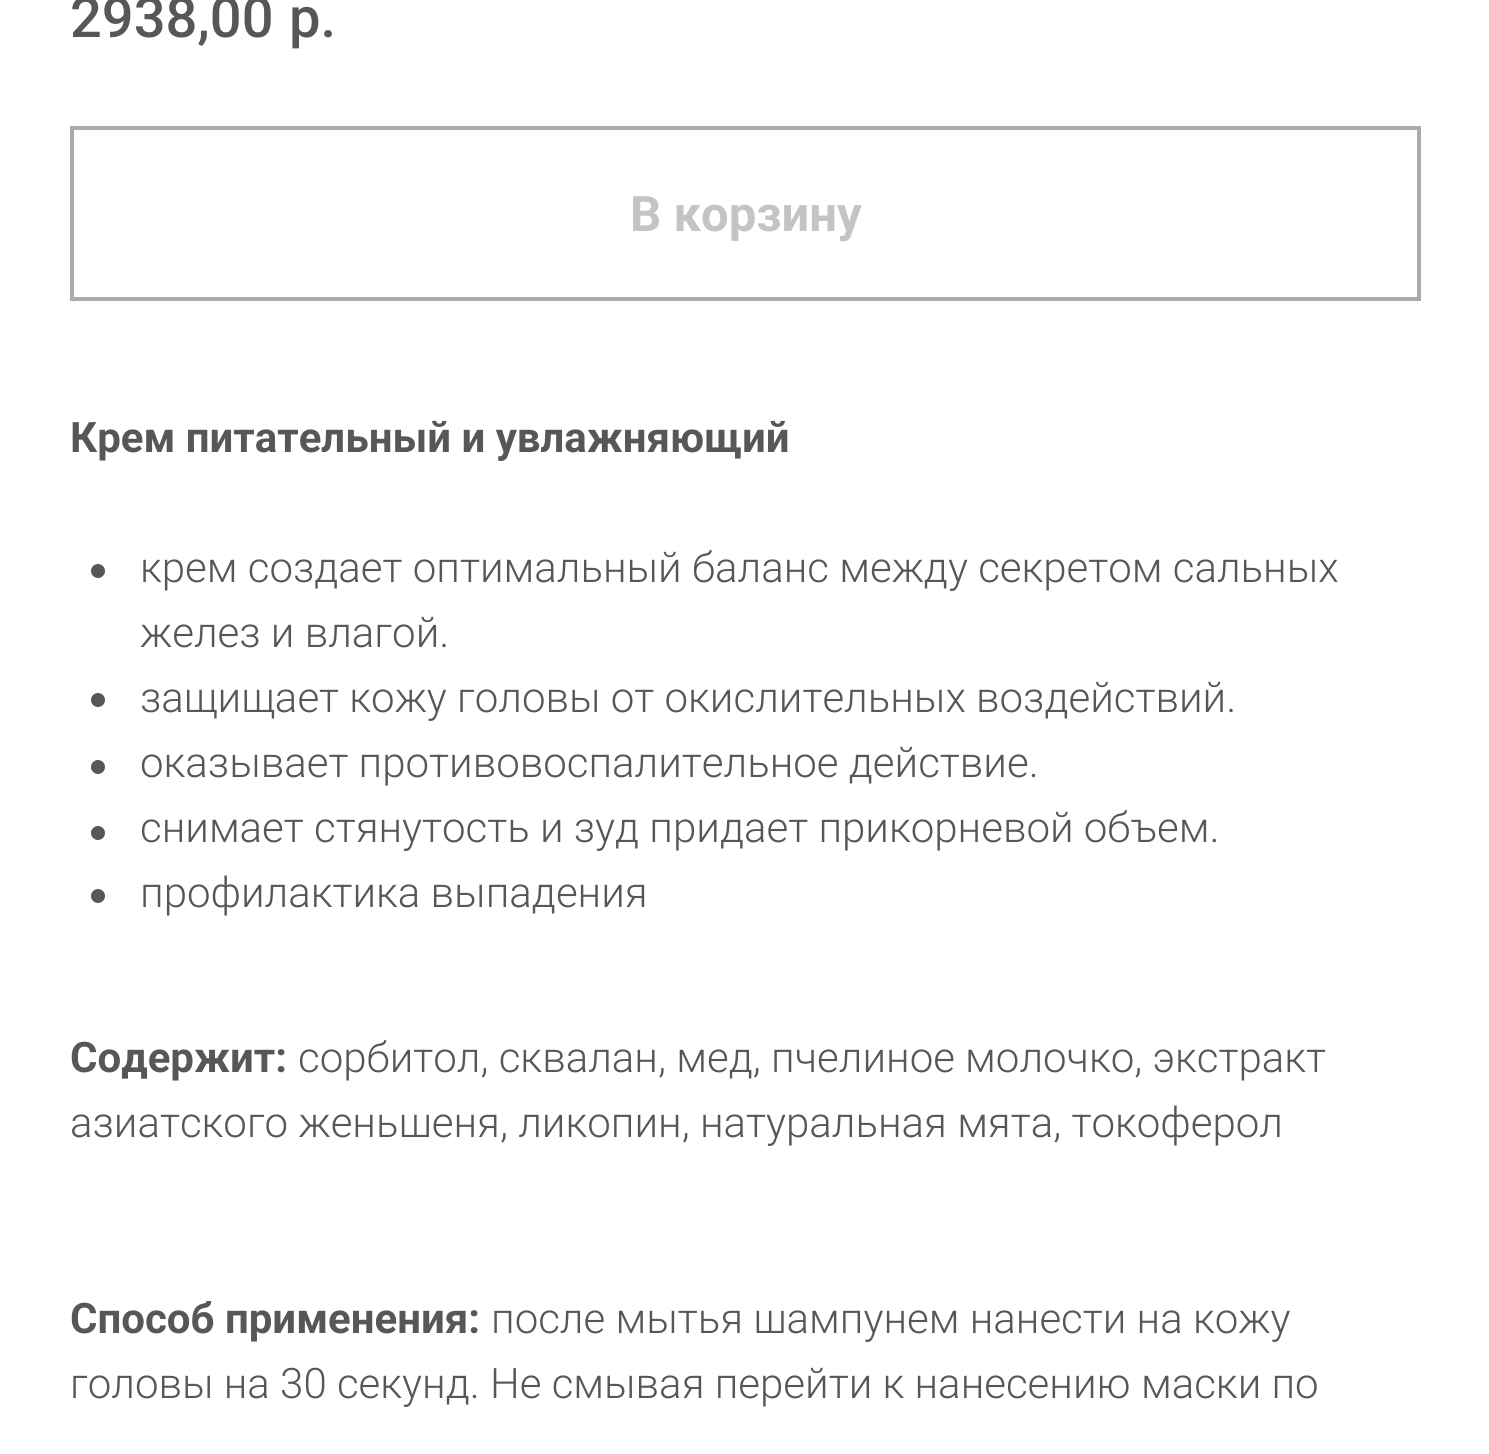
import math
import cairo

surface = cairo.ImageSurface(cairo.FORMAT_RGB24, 1489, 1454)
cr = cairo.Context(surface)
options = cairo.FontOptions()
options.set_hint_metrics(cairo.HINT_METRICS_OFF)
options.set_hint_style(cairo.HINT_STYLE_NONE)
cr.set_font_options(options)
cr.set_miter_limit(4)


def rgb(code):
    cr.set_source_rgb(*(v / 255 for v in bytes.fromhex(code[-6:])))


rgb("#ffffff")
cr.paint()
cr.rectangle(72, 128, 1347, 171)
rgb("#ababab")
cr.set_line_width(4)
cr.stroke()
rgb("#575757")
cr.arc(98, 571, 7, 0, 2 * math.pi)
cr.fill()
cr.arc(98, 700, 7, 0, 2 * math.pi)
cr.fill()
cr.arc(98, 767, 7, 0, 2 * math.pi)
cr.fill()
cr.arc(98, 833, 7, 0, 2 * math.pi)
cr.fill()
cr.arc(98, 896, 7, 0, 2 * math.pi)
cr.fill()
cr.select_font_face("Roboto Medium")
cr.set_font_size(56)
cr.move_to(70, 37)
cr.show_text("2938,00")
cr.move_to(289, 37)
cr.show_text("р.")
cr.select_font_face("Roboto", cairo.FONT_SLANT_NORMAL, cairo.FONT_WEIGHT_BOLD)
cr.set_font_size(49)
rgb("#c4c4c4")
cr.move_to(630, 231)
cr.show_text("В корзину")
cr.set_font_size(42)
rgb("#575757")
cr.move_to(70, 452)
cr.show_text("Крем питательный и увлажняющий")
cr.select_font_face("Roboto Light")
for x, y, s in [
    (140, 582, "крем создает оптимальный баланс между секретом сальных"),
    (140, 647, "желез и влагой."),
    (140, 712, "защищает кожу головы от окислительных воздействий."),
    (140, 777, "оказывает противовоспалительное действие."),
    (140, 842, "снимает стянутость и зуд придает прикорневой объем."),
    (140, 907, "профилактика выпадения"),
]:
    cr.move_to(x, y)
    cr.show_text(s)
cr.select_font_face("Roboto", cairo.FONT_SLANT_NORMAL, cairo.FONT_WEIGHT_BOLD)
cr.move_to(70, 1072)
cr.show_text("Содержит:")
cr.select_font_face("Roboto Light")
cr.move_to(298, 1072)
cr.show_text("сорбитол, сквалан, мед, пчелиное молочко, экстракт")
cr.move_to(70, 1137)
cr.show_text("азиатского женьшеня, ликопин, натуральная мята, токоферол")
cr.select_font_face("Roboto", cairo.FONT_SLANT_NORMAL, cairo.FONT_WEIGHT_BOLD)
cr.move_to(70, 1333)
cr.show_text("Способ применения:")
cr.select_font_face("Roboto Light")
cr.move_to(491, 1333)
cr.show_text("после мытья шампунем нанести на кожу")
cr.move_to(70, 1398)
cr.show_text("головы на 30 секунд. Не смывая перейти к нанесению маски по")
surface.write_to_png("page.png")
